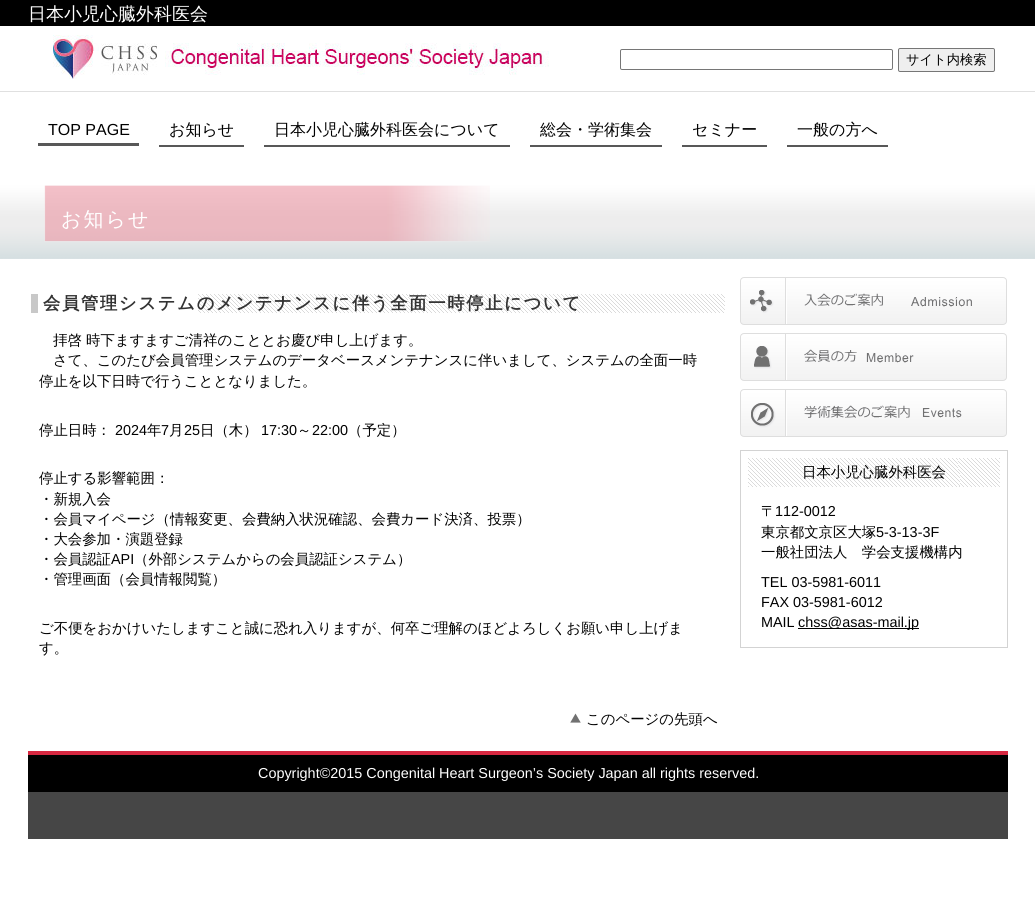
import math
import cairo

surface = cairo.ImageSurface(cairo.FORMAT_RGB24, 1035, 911)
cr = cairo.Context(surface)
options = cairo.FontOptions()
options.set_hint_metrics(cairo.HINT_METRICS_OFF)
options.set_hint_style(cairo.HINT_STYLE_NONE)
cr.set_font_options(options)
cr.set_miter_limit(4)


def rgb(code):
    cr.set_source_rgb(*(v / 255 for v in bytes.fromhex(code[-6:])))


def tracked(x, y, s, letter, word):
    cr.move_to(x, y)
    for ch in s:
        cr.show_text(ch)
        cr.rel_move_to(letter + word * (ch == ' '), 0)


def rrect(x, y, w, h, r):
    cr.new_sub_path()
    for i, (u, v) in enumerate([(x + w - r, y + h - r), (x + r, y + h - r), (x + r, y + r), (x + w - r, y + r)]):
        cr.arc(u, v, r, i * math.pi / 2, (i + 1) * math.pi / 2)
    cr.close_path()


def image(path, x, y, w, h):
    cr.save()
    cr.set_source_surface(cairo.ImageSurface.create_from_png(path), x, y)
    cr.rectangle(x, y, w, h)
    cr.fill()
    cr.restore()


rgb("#ffffff")
cr.paint()
image("img/1.png", 0, 0, 1035, 259)
image("img/2.png", 53, 35, 496, 44)
rrect(620.5, 49.5, 272, 20, 1.5)
rgb("#767676")
cr.set_line_width(1)
cr.stroke()
rgb("#efefef")
rrect(898.5, 48.5, 96, 23, 1.5)
cr.fill_preserve()
rgb("#767676")
cr.stroke()
for x, y, w, h, color in [
    (38, 143, 101, 3, "#585858"),
    (159, 145, 85, 2, "#585858"),
    (264, 145, 246, 2, "#585858"),
    (530, 145, 132, 2, "#585858"),
    (682, 145, 85, 2, "#585858"),
    (787, 145, 101, 2, "#585858"),
]:
    rgb(color)
    cr.rectangle(x, y, w, h)
    cr.fill()
image("img/3.png", 44, 185, 446, 57)
image("img/4.png", 198, 294, 527, 19)
rgb("#c8c8c8")
cr.rectangle(31, 294, 7, 19)
cr.fill()
image("img/5.png", 570, 713, 11, 10)
image("img/6.png", 740, 277, 267, 48)
image("img/7.png", 740, 333, 267, 48)
image("img/8.png", 740, 389, 267, 48)
cr.rectangle(740.5, 450.5, 267, 197)
rgb("#d3d3d3")
cr.stroke()
image("img/9.png", 748, 458, 252, 29)
for x, y, w, h, color in [
    (798, 628, 121, 1, "#000000"),
    (28, 751, 980, 4, "#d72841"),
    (28, 755, 980, 37, "#000000"),
    (28, 792, 980, 47, "#464646"),
]:
    rgb(color)
    cr.rectangle(x, y, w, h)
    cr.fill()
cr.select_font_face("WenQuanYi Zen Hei Medium")
cr.set_font_size(18)
rgb("#ffffff")
cr.move_to(28, 20)
cr.show_text("日本小児心臓外科医会")
cr.set_font_size(13.25)
rgb("#000000")
cr.move_to(906, 64)
cr.show_text("サイト内検索")
cr.select_font_face("Liberation Sans")
cr.set_font_size(16)
cr.move_to(48, 135)
cr.show_text("TOP PAGE")
cr.select_font_face("WenQuanYi Zen Hei Medium")
for x, y, s in [
    (169, 135, "お知らせ"),
    (274, 135, "日本小児心臓外科医会について"),
    (540, 135, "総会・学術集会"),
    (692, 135, "セミナー"),
    (797, 135, "一般の方へ"),
]:
    cr.move_to(x, y)
    cr.show_text(s)
cr.set_font_size(20)
rgb("#ffffff")
tracked(61, 226, "お知らせ", 2, 0)
cr.select_font_face("WenQuanYi Zen Hei", cairo.FONT_SLANT_NORMAL, cairo.FONT_WEIGHT_BOLD)
cr.set_font_size(17.25)
rgb("#333333")
tracked(43, 309, "会員管理システムのメンテナンスに伴う全面一時停止について", 1.75, 0)
cr.select_font_face("WenQuanYi Zen Hei Medium")
cr.set_font_size(14.4)
rgb("#000000")
for x, y, s in [
    (53, 345, "拝啓 時下ますますご清祥のこととお慶び申し上げます。"),
    (53, 365, "さて、このたび会員管理システムのデータベースメンテナンスに伴いまして、システムの全面一時"),
    (39, 386, "停止を以下日時で行うこととなりました。"),
    (39, 435, "停止日時："),
]:
    cr.move_to(x, y)
    cr.show_text(s)
cr.select_font_face("Liberation Sans")
cr.move_to(115, 435)
cr.show_text("2024")
cr.select_font_face("WenQuanYi Zen Hei Medium")
cr.move_to(147, 435)
cr.show_text("年")
cr.select_font_face("Liberation Sans")
cr.move_to(161, 435)
cr.show_text("7")
cr.select_font_face("WenQuanYi Zen Hei Medium")
cr.move_to(169, 435)
cr.show_text("月")
cr.select_font_face("Liberation Sans")
cr.move_to(184, 435)
cr.show_text("25")
cr.select_font_face("WenQuanYi Zen Hei Medium")
cr.move_to(200, 435)
cr.show_text("日（木）")
cr.select_font_face("Liberation Sans")
cr.move_to(261, 435)
cr.show_text("17:30")
cr.select_font_face("WenQuanYi Zen Hei Medium")
cr.move_to(297, 435)
cr.show_text("～")
cr.select_font_face("Liberation Sans")
cr.move_to(312, 435)
cr.show_text("22:00")
cr.select_font_face("WenQuanYi Zen Hei Medium")
for x, y, s in [
    (348, 435, "（予定）"),
    (39, 483, "停止する影響範囲："),
    (39, 504, "・新規入会"),
    (39, 524, "・会員マイページ（情報変更、会費納入状況確認、会費カード決済、投票）"),
    (39, 544, "・大会参加・演題登録"),
    (39, 564, "・会員認証"),
]:
    cr.move_to(x, y)
    cr.show_text(s)
cr.select_font_face("Liberation Sans")
cr.move_to(111, 564)
cr.show_text("API")
cr.select_font_face("WenQuanYi Zen Hei Medium")
for x, y, s in [
    (134, 564, "（外部システムからの会員認証システム）"),
    (39, 584, "・管理画面（会員情報閲覧）"),
    (39, 633, "ご不便をおかけいたしますこと誠に恐れ入りますが、何卒ご理解のほどよろしくお願い申し上げま"),
    (39, 653, "す。"),
    (586, 724, "このページの先頭へ"),
    (802, 477, "日本小児心臓外科医会"),
    (761, 516, "〒"),
]:
    cr.move_to(x, y)
    cr.show_text(s)
cr.select_font_face("Liberation Sans")
cr.move_to(775, 516)
cr.show_text("112-0012")
cr.select_font_face("WenQuanYi Zen Hei Medium")
cr.move_to(761, 537)
cr.show_text("東京都文京区大塚")
cr.select_font_face("Liberation Sans")
cr.move_to(876, 537)
cr.show_text("5-3-13-3F")
cr.select_font_face("WenQuanYi Zen Hei Medium")
cr.move_to(761, 557)
cr.show_text("一般社団法人　学会支援機構内")
cr.select_font_face("Liberation Sans")
for x, y, s in [
    (761, 587, "TEL 03-5981-6011"),
    (761, 607, "FAX 03-5981-6012"),
    (761, 627, "MAIL"),
    (798, 627, "chss@asas-mail.jp"),
]:
    cr.move_to(x, y)
    cr.show_text(s)
rgb("#ffffff")
cr.move_to(258, 778)
cr.show_text("Copyright©2015 Congenital Heart Surgeon’s Society Japan all rights reserved.")
surface.write_to_png("page.png")
